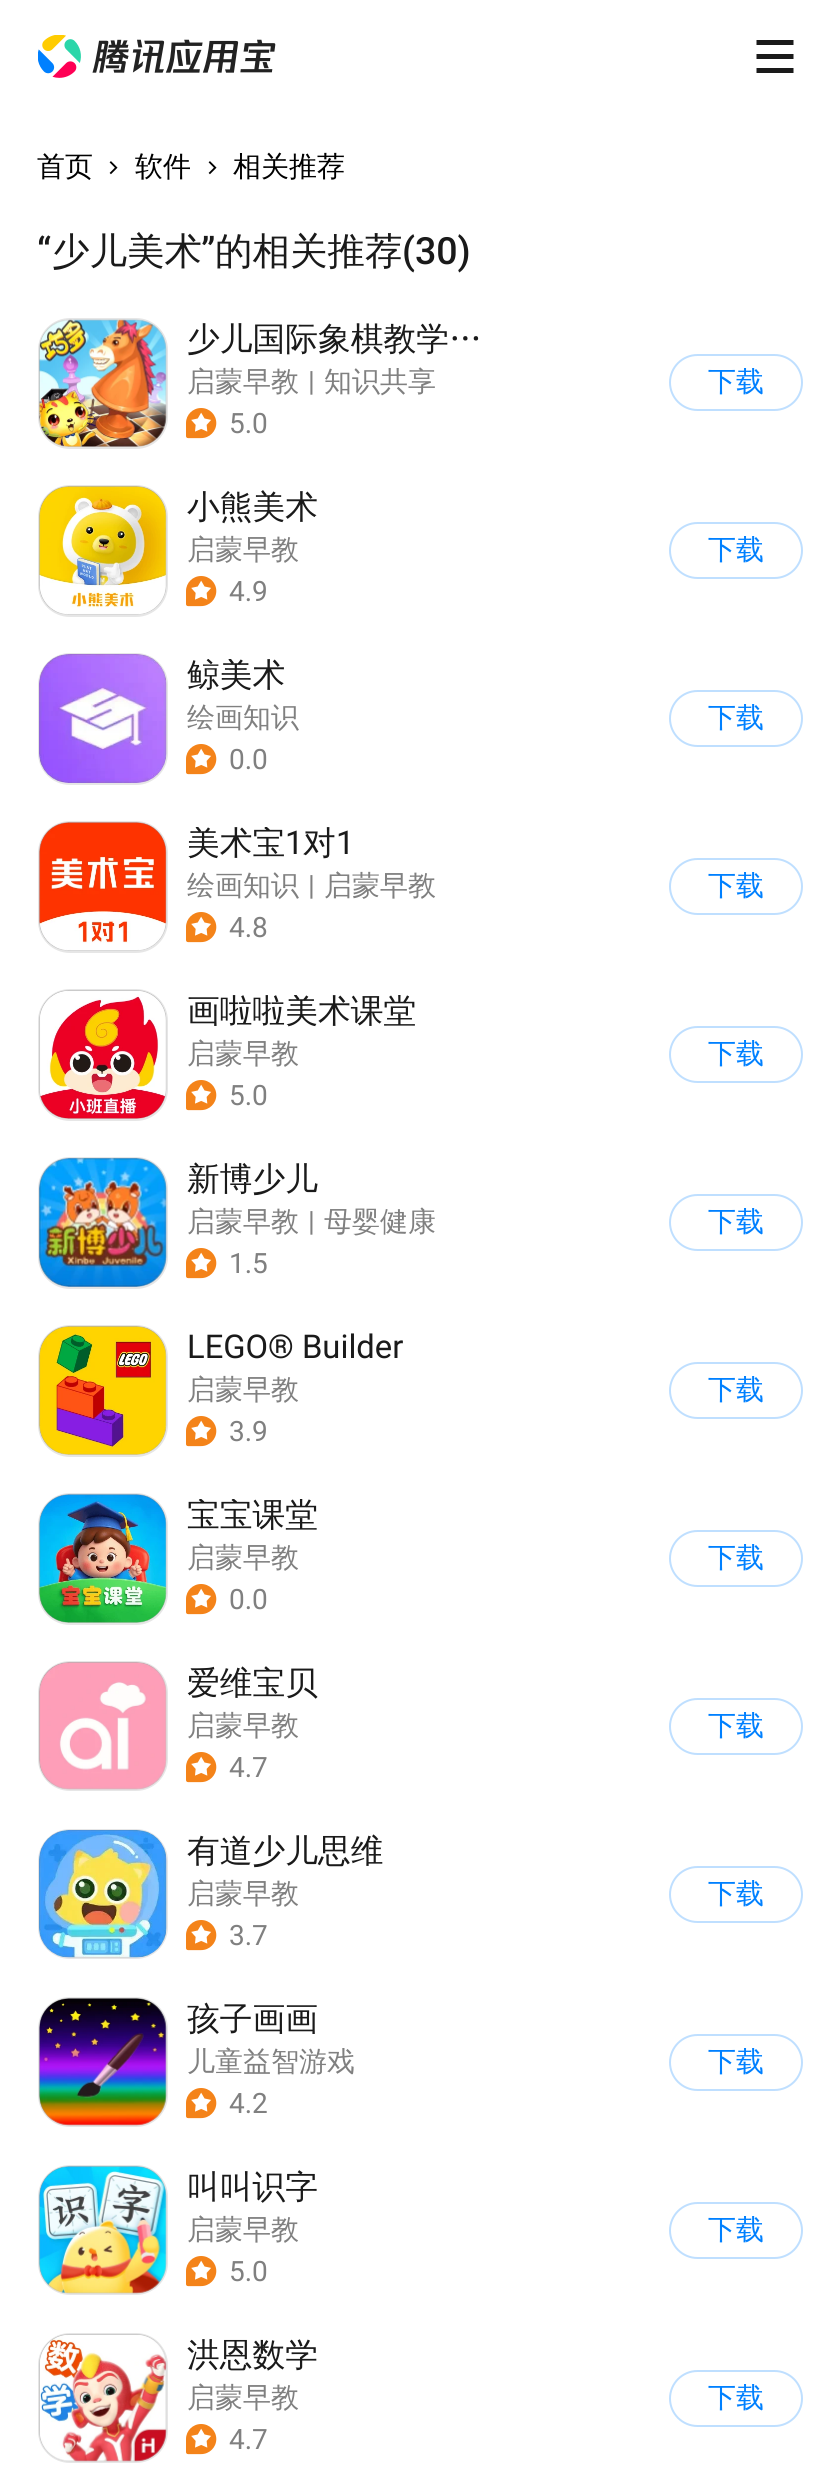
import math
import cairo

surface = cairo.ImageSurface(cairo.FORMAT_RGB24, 839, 2491)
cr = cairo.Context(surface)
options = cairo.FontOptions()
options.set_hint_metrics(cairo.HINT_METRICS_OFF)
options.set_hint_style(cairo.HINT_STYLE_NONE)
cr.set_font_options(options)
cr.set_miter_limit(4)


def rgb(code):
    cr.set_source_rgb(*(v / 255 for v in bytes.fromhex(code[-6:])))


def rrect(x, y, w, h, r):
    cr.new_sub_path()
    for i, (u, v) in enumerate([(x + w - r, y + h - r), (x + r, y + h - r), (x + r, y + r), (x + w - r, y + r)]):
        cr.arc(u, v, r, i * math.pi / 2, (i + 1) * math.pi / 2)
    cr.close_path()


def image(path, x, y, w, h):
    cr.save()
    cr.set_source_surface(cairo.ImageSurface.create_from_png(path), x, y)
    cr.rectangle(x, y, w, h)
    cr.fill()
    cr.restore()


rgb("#ffffff")
cr.paint()
image("img/1.png", 38, 35, 238, 43)
rgb("#1a1a1a")
cr.set_fill_rule(cairo.FILL_RULE_EVEN_ODD)
cr.new_path()
cr.move_to(756.5, 40)
cr.line_to(793.5, 40)
cr.line_to(793.5, 45)
cr.line_to(756.5, 45)
cr.close_path()
cr.move_to(756.5, 54)
cr.line_to(793.5, 54)
cr.line_to(793.5, 59)
cr.line_to(756.5, 59)
cr.close_path()
cr.move_to(793.5, 68)
cr.line_to(756.5, 68)
cr.line_to(756.5, 73)
cr.line_to(793.5, 73)
cr.close_path()
cr.fill()
image("img/2.png", 109, 161, 9, 14)
image("img/2.png", 208, 161, 9, 14)
rrect(39, 319, 128, 129, 31)
rgb("#e6e6e6")
cr.stroke()
image("img/3.png", 39, 319, 128, 128)
image("img/4.png", 186, 408, 31, 31)
rrect(670, 355, 132, 55, 27.5)
rgb("#bfdfff")
cr.stroke()
rrect(39, 486, 128, 130, 31)
rgb("#e6e6e6")
cr.stroke()
image("img/5.png", 39, 486, 128, 129)
image("img/4.png", 186, 576, 31, 31)
rrect(670, 523, 132, 55, 27.5)
rgb("#bfdfff")
cr.stroke()
rrect(39, 654, 128, 130, 31)
rgb("#e6e6e6")
cr.stroke()
image("img/6.png", 39, 654, 128, 129)
image("img/4.png", 186, 744, 31, 31)
rrect(670, 691, 132, 55, 27.5)
rgb("#bfdfff")
cr.stroke()
rrect(39, 822, 128, 130, 31)
rgb("#e6e6e6")
cr.stroke()
image("img/7.png", 39, 822, 128, 129)
image("img/4.png", 186, 912, 31, 31)
rrect(670, 859, 132, 55, 27.5)
rgb("#bfdfff")
cr.stroke()
rrect(39, 990, 128, 130, 31)
rgb("#e6e6e6")
cr.stroke()
image("img/8.png", 39, 990, 128, 129)
image("img/4.png", 186, 1080, 31, 31)
rrect(670, 1027, 132, 55, 27.5)
rgb("#bfdfff")
cr.stroke()
rrect(39, 1158, 128, 130, 31)
rgb("#e6e6e6")
cr.stroke()
image("img/9.png", 39, 1158, 128, 129)
image("img/4.png", 186, 1248, 31, 31)
rrect(670, 1195, 132, 55, 27.5)
rgb("#bfdfff")
cr.stroke()
rrect(39, 1326, 128, 130, 31)
rgb("#e6e6e6")
cr.stroke()
image("img/10.png", 39, 1326, 128, 129)
image("img/4.png", 186, 1416, 31, 31)
rrect(670, 1363, 132, 55, 27.5)
rgb("#bfdfff")
cr.stroke()
rrect(39, 1494, 128, 130, 31)
rgb("#e6e6e6")
cr.stroke()
image("img/11.png", 39, 1494, 128, 129)
image("img/4.png", 186, 1584, 31, 31)
rrect(670, 1531, 132, 55, 27.5)
rgb("#bfdfff")
cr.stroke()
rrect(39, 1662, 128, 128, 31)
rgb("#e6e6e6")
cr.stroke()
image("img/12.png", 39, 1662, 128, 128)
image("img/4.png", 186, 1752, 31, 31)
rrect(670, 1699, 132, 55, 27.5)
rgb("#bfdfff")
cr.stroke()
rrect(39, 1830, 128, 128, 31)
rgb("#e6e6e6")
cr.stroke()
image("img/13.png", 39, 1830, 128, 128)
image("img/4.png", 186, 1920, 31, 31)
rrect(670, 1867, 132, 55, 27.5)
rgb("#bfdfff")
cr.stroke()
rrect(39, 1998, 128, 128, 31)
rgb("#e6e6e6")
cr.stroke()
image("img/14.png", 39, 1998, 128, 128)
image("img/4.png", 186, 2088, 31, 31)
rrect(670, 2035, 132, 55, 27.5)
rgb("#bfdfff")
cr.stroke()
rrect(39, 2166, 128, 128, 31)
rgb("#e6e6e6")
cr.stroke()
image("img/15.png", 39, 2166, 128, 128)
image("img/4.png", 186, 2256, 31, 31)
rrect(670, 2203, 132, 55, 27.5)
rgb("#bfdfff")
cr.stroke()
rrect(39, 2334, 128, 128, 31)
rgb("#e6e6e6")
cr.stroke()
image("img/16.png", 39, 2334, 128, 128)
image("img/4.png", 186, 2424, 31, 31)
rrect(670, 2371, 132, 55, 27.5)
rgb("#bfdfff")
cr.stroke()
cr.select_font_face("WenQuanYi Zen Hei Medium")
cr.set_font_size(28)
rgb("#000000")
for x, y, s in [
    (37, 176, "首页"),
    (135, 176, "软件"),
    (233, 176, "相关推荐"),
]:
    cr.move_to(x, y)
    cr.show_text(s)
cr.select_font_face("Roboto Medium")
cr.set_font_size(37.5)
rgb("#1a1a1a")
cr.move_to(37, 264)
cr.show_text("“")
cr.select_font_face("WenQuanYi Zen Hei Medium")
cr.move_to(52, 264)
cr.show_text("少儿美术")
cr.select_font_face("Roboto Medium")
cr.move_to(201, 264)
cr.show_text("”")
cr.select_font_face("WenQuanYi Zen Hei Medium")
cr.move_to(215, 264)
cr.show_text("的相关推荐")
cr.select_font_face("Roboto Medium")
cr.move_to(402, 264)
cr.show_text("(30)")
cr.select_font_face("WenQuanYi Zen Hei Medium")
cr.set_font_size(32.75)
cr.move_to(187, 350)
cr.show_text("少儿国际象棋教学…")
cr.set_font_size(28)
rgb("#808080")
cr.move_to(187, 391)
cr.show_text("启蒙早教")
cr.select_font_face("Roboto")
cr.move_to(308, 391)
cr.show_text("|")
cr.select_font_face("WenQuanYi Zen Hei Medium")
cr.move_to(324, 391)
cr.show_text("知识共享")
cr.select_font_face("Roboto")
cr.move_to(229, 433)
cr.show_text("5.0")
cr.select_font_face("WenQuanYi Zen Hei Medium")
rgb("#0080ff")
cr.move_to(708, 391)
cr.show_text("下载")
cr.set_font_size(32.75)
rgb("#1a1a1a")
cr.move_to(187, 518)
cr.show_text("小熊美术")
cr.set_font_size(28)
rgb("#808080")
cr.move_to(187, 559)
cr.show_text("启蒙早教")
cr.select_font_face("Roboto")
cr.move_to(229, 601)
cr.show_text("4.9")
cr.select_font_face("WenQuanYi Zen Hei Medium")
rgb("#0080ff")
cr.move_to(708, 559)
cr.show_text("下载")
cr.save()
cr.set_fill_rule(cairo.FILL_RULE_WINDING)
cr.rectangle(186, 659, 300, 36)
cr.clip()
cr.set_font_size(32.75)
rgb("#1a1a1a")
cr.move_to(187, 686)
cr.show_text("鲸美术")
cr.restore()
rgb("#808080")
cr.move_to(187, 727)
cr.show_text("绘画知识")
cr.select_font_face("Roboto")
cr.move_to(229, 769)
cr.show_text("0.0")
cr.select_font_face("WenQuanYi Zen Hei Medium")
rgb("#0080ff")
cr.move_to(708, 727)
cr.show_text("下载")
cr.save()
cr.set_fill_rule(cairo.FILL_RULE_WINDING)
cr.rectangle(186, 827, 300, 36)
cr.clip()
cr.set_font_size(32.75)
rgb("#1a1a1a")
cr.move_to(187, 854)
cr.show_text("美术宝")
cr.restore()
cr.select_font_face("Roboto")
cr.set_font_size(32.75)
rgb("#1a1a1a")
cr.move_to(285, 854)
cr.show_text("1")
cr.select_font_face("WenQuanYi Zen Hei Medium")
cr.move_to(303, 854)
cr.show_text("对")
cr.select_font_face("Roboto")
cr.move_to(336, 854)
cr.show_text("1")
cr.select_font_face("WenQuanYi Zen Hei Medium")
cr.set_font_size(28)
rgb("#808080")
cr.move_to(187, 895)
cr.show_text("绘画知识")
cr.select_font_face("Roboto")
cr.move_to(308, 895)
cr.show_text("|")
cr.select_font_face("WenQuanYi Zen Hei Medium")
cr.move_to(324, 895)
cr.show_text("启蒙早教")
cr.select_font_face("Roboto")
cr.move_to(229, 937)
cr.show_text("4.8")
cr.select_font_face("WenQuanYi Zen Hei Medium")
rgb("#0080ff")
cr.move_to(708, 895)
cr.show_text("下载")
cr.save()
cr.set_fill_rule(cairo.FILL_RULE_WINDING)
cr.rectangle(186, 995, 300, 36)
cr.clip()
cr.set_font_size(32.75)
rgb("#1a1a1a")
cr.move_to(187, 1022)
cr.show_text("画啦啦美术课堂")
cr.restore()
rgb("#808080")
cr.move_to(187, 1063)
cr.show_text("启蒙早教")
cr.select_font_face("Roboto")
cr.move_to(229, 1105)
cr.show_text("5.0")
cr.select_font_face("WenQuanYi Zen Hei Medium")
rgb("#0080ff")
cr.move_to(708, 1063)
cr.show_text("下载")
cr.set_font_size(32.75)
rgb("#1a1a1a")
cr.move_to(187, 1190)
cr.show_text("新博少儿")
cr.set_font_size(28)
rgb("#808080")
cr.move_to(187, 1231)
cr.show_text("启蒙早教")
cr.select_font_face("Roboto")
cr.move_to(308, 1231)
cr.show_text("|")
cr.select_font_face("WenQuanYi Zen Hei Medium")
cr.move_to(324, 1231)
cr.show_text("母婴健康")
cr.select_font_face("Roboto")
cr.move_to(229, 1273)
cr.show_text("1.5")
cr.select_font_face("WenQuanYi Zen Hei Medium")
rgb("#0080ff")
cr.move_to(708, 1231)
cr.show_text("下载")
cr.select_font_face("Roboto")
cr.set_font_size(32.75)
rgb("#1a1a1a")
cr.move_to(187, 1358)
cr.show_text("LEGO® Builder")
cr.select_font_face("WenQuanYi Zen Hei Medium")
cr.set_font_size(28)
rgb("#808080")
cr.move_to(187, 1399)
cr.show_text("启蒙早教")
cr.select_font_face("Roboto")
cr.move_to(229, 1441)
cr.show_text("3.9")
cr.select_font_face("WenQuanYi Zen Hei Medium")
rgb("#0080ff")
cr.move_to(708, 1399)
cr.show_text("下载")
cr.save()
cr.set_fill_rule(cairo.FILL_RULE_WINDING)
cr.rectangle(186, 1499, 300, 36)
cr.clip()
cr.set_font_size(32.75)
rgb("#1a1a1a")
cr.move_to(187, 1526)
cr.show_text("宝宝课堂")
cr.restore()
rgb("#808080")
cr.move_to(187, 1567)
cr.show_text("启蒙早教")
cr.select_font_face("Roboto")
cr.move_to(229, 1609)
cr.show_text("0.0")
cr.select_font_face("WenQuanYi Zen Hei Medium")
rgb("#0080ff")
cr.move_to(708, 1567)
cr.show_text("下载")
cr.set_font_size(32.75)
rgb("#1a1a1a")
cr.move_to(187, 1694)
cr.show_text("爱维宝贝")
cr.set_font_size(28)
rgb("#808080")
cr.move_to(187, 1735)
cr.show_text("启蒙早教")
cr.select_font_face("Roboto")
cr.move_to(229, 1777)
cr.show_text("4.7")
cr.select_font_face("WenQuanYi Zen Hei Medium")
rgb("#0080ff")
cr.move_to(708, 1735)
cr.show_text("下载")
cr.set_font_size(32.75)
rgb("#1a1a1a")
cr.move_to(187, 1862)
cr.show_text("有道少儿思维")
cr.set_font_size(28)
rgb("#808080")
cr.move_to(187, 1903)
cr.show_text("启蒙早教")
cr.select_font_face("Roboto")
cr.move_to(229, 1945)
cr.show_text("3.7")
cr.select_font_face("WenQuanYi Zen Hei Medium")
rgb("#0080ff")
cr.move_to(708, 1903)
cr.show_text("下载")
cr.set_font_size(32.75)
rgb("#1a1a1a")
cr.move_to(187, 2030)
cr.show_text("孩子画画")
cr.set_font_size(28)
rgb("#808080")
cr.move_to(187, 2071)
cr.show_text("儿童益智游戏")
cr.select_font_face("Roboto")
cr.move_to(229, 2113)
cr.show_text("4.2")
cr.select_font_face("WenQuanYi Zen Hei Medium")
rgb("#0080ff")
cr.move_to(708, 2071)
cr.show_text("下载")
cr.set_font_size(32.75)
rgb("#1a1a1a")
cr.move_to(187, 2198)
cr.show_text("叫叫识字")
cr.set_font_size(28)
rgb("#808080")
cr.move_to(187, 2239)
cr.show_text("启蒙早教")
cr.select_font_face("Roboto")
cr.move_to(229, 2281)
cr.show_text("5.0")
cr.select_font_face("WenQuanYi Zen Hei Medium")
rgb("#0080ff")
cr.move_to(708, 2239)
cr.show_text("下载")
cr.set_font_size(32.75)
rgb("#1a1a1a")
cr.move_to(187, 2366)
cr.show_text("洪恩数学")
cr.set_font_size(28)
rgb("#808080")
cr.move_to(187, 2407)
cr.show_text("启蒙早教")
cr.select_font_face("Roboto")
cr.move_to(229, 2449)
cr.show_text("4.7")
cr.select_font_face("WenQuanYi Zen Hei Medium")
rgb("#0080ff")
cr.move_to(708, 2407)
cr.show_text("下载")
surface.write_to_png("page.png")
